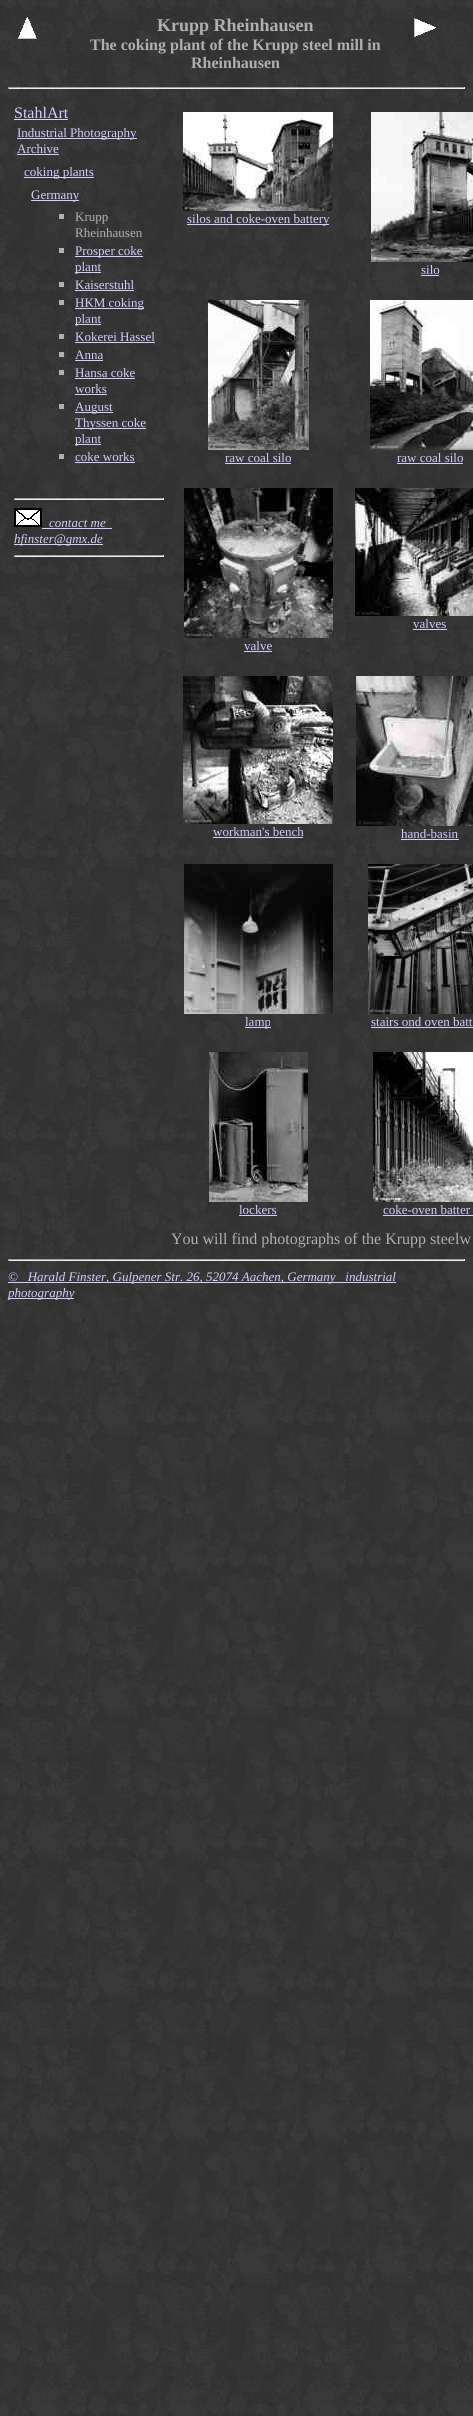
import math
import cairo

surface = cairo.ImageSurface(cairo.FORMAT_RGB24, 473, 2416)
cr = cairo.Context(surface)
options = cairo.FontOptions()
options.set_hint_metrics(cairo.HINT_METRICS_OFF)
options.set_hint_style(cairo.HINT_STYLE_NONE)
cr.set_font_options(options)
cr.set_miter_limit(4)


def rgb(code):
    cr.set_source_rgb(*(v / 255 for v in bytes.fromhex(code[-6:])))


def image(path, x, y, w, h):
    cr.save()
    cr.set_source_surface(cairo.ImageSurface.create_from_png(path), x, y)
    cr.rectangle(x, y, w, h)
    cr.fill()
    cr.restore()


rgb("#ffffff")
cr.paint()
image("img/1.png", 0, 0, 473, 2416)
image("img/2.png", 18, 17, 19, 22)
image("img/3.png", 414, 18, 22, 19)
for x, y, w, h, color in [
    (8, 87, 457, 1, "#9f9f9f"),
    (464, 87, 1, 2, "#eeeeee"),
    (8, 88, 457, 1, "#eeeeee"),
    (8, 87, 1, 2, "#9f9f9f"),
    (14, 119, 54, 1, "#d0d0ff"),
    (17, 138, 120, 1, "#d0d0ff"),
    (17, 154, 42, 1, "#d0d0ff"),
    (24, 177, 70, 1, "#d0d0ff"),
    (31, 200, 48, 1, "#d0d0ff"),
    (59, 214, 5, 5, "#b0b0b0"),
    (59, 248, 5, 5, "#b0b0b0"),
    (75, 256, 68, 1, "#d0d0ff"),
    (75, 272, 26, 1, "#d0d0ff"),
    (59, 282, 5, 5, "#b0b0b0"),
    (75, 290, 59, 1, "#d0d0ff"),
    (59, 300, 5, 5, "#b0b0b0"),
    (75, 308, 69, 1, "#d0d0ff"),
    (75, 324, 26, 1, "#d0d0ff"),
    (59, 334, 5, 5, "#b0b0b0"),
    (75, 342, 80, 1, "#d0d0ff"),
    (59, 352, 5, 5, "#b0b0b0"),
    (75, 360, 28, 1, "#d0d0ff"),
    (59, 370, 5, 5, "#b0b0b0"),
    (75, 378, 60, 1, "#d0d0ff"),
    (75, 394, 32, 1, "#d0d0ff"),
    (59, 404, 5, 5, "#b0b0b0"),
    (75, 412, 38, 1, "#d0d0ff"),
    (75, 428, 71, 1, "#d0d0ff"),
    (75, 444, 26, 1, "#d0d0ff"),
    (59, 454, 5, 5, "#b0b0b0"),
    (75, 462, 60, 1, "#d0d0ff"),
    (14, 498, 150, 1, "#9f9f9f"),
    (163, 498, 1, 2, "#eeeeee"),
    (14, 499, 150, 1, "#eeeeee"),
    (14, 498, 1, 2, "#9f9f9f"),
]:
    rgb(color)
    cr.rectangle(x, y, w, h)
    cr.fill()
image("img/4.png", 14, 508, 28, 19)
for x, y, w, h, color in [
    (42, 528, 70, 1, "#d0d0ff"),
    (14, 544, 89, 1, "#d0d0ff"),
    (14, 555, 150, 1, "#9f9f9f"),
    (163, 555, 1, 2, "#eeeeee"),
    (14, 556, 150, 1, "#eeeeee"),
    (14, 555, 1, 2, "#9f9f9f"),
]:
    rgb(color)
    cr.rectangle(x, y, w, h)
    cr.fill()
image("img/5.png", 183, 112, 150, 99)
rgb("#d0d0ff")
cr.rectangle(187, 224, 142, 1)
cr.fill()
image("img/6.png", 371, 112, 102, 150)
cr.rectangle(421, 275, 18, 1)
cr.fill()
image("img/7.png", 208, 300, 101, 150)
cr.rectangle(225, 463, 66, 1)
cr.fill()
image("img/8.png", 370, 300, 103, 150)
cr.rectangle(397, 463, 66, 1)
cr.fill()
image("img/9.png", 355, 488, 118, 128)
cr.rectangle(413, 629, 34, 1)
cr.fill()
image("img/10.png", 184, 488, 149, 150)
cr.rectangle(244, 651, 28, 1)
cr.fill()
image("img/11.png", 183, 676, 150, 148)
cr.rectangle(213, 837, 90, 1)
cr.fill()
image("img/12.png", 356, 676, 117, 150)
cr.rectangle(401, 839, 58, 1)
cr.fill()
image("img/13.png", 184, 864, 149, 150)
cr.rectangle(245, 1027, 26, 1)
cr.fill()
image("img/14.png", 368, 864, 105, 150)
cr.rectangle(371, 1027, 102, 1)
cr.fill()
image("img/15.png", 209, 1052, 99, 150)
cr.rectangle(239, 1215, 38, 1)
cr.fill()
image("img/16.png", 373, 1052, 100, 150)
for x, y, w, h, color in [
    (383, 1215, 90, 1, "#d0d0ff"),
    (8, 1259, 457, 1, "#9f9f9f"),
    (464, 1259, 1, 2, "#eeeeee"),
    (8, 1260, 457, 1, "#eeeeee"),
    (8, 1259, 1, 2, "#9f9f9f"),
    (8, 1282, 388, 1, "#d0d0ff"),
    (8, 1298, 66, 1, "#d0d0ff"),
]:
    rgb(color)
    cr.rectangle(x, y, w, h)
    cr.fill()
cr.select_font_face("Liberation Serif", cairo.FONT_SLANT_NORMAL, cairo.FONT_WEIGHT_BOLD)
cr.set_font_size(18)
rgb("#b0b0b0")
cr.move_to(157, 31)
cr.show_text("Krupp Rheinhausen")
cr.set_font_size(16)
cr.move_to(90, 50)
cr.show_text("The coking plant of the Krupp steel mill in")
cr.move_to(191, 68)
cr.show_text("Rheinhausen")
cr.select_font_face("Liberation Serif")
rgb("#d0d0ff")
cr.move_to(14, 118)
cr.show_text("StahlArt")
cr.set_font_size(13)
for x, y, s in [
    (17, 137, "Industrial Photography"),
    (17, 153, "Archive"),
    (24, 176, "coking plants"),
    (31, 199, "Germany"),
]:
    cr.move_to(x, y)
    cr.show_text(s)
rgb("#b0b0b0")
cr.move_to(75, 221)
cr.show_text("Krupp")
cr.move_to(75, 237)
cr.show_text("Rheinhausen")
rgb("#d0d0ff")
for x, y, s in [
    (75, 255, "Prosper coke"),
    (75, 271, "plant"),
    (75, 289, "Kaiserstuhl"),
    (75, 307, "HKM coking"),
    (75, 323, "plant"),
    (75, 341, "Kokerei Hassel"),
    (75, 359, "Anna"),
    (75, 377, "Hansa coke"),
    (75, 393, "works"),
    (75, 411, "August"),
    (75, 427, "Thyssen coke"),
    (75, 443, "plant"),
    (75, 461, "coke works"),
]:
    cr.move_to(x, y)
    cr.show_text(s)
cr.select_font_face("Liberation Serif", cairo.FONT_SLANT_ITALIC)
cr.move_to(49, 527)
cr.show_text("contact me")
cr.move_to(14, 543)
cr.show_text("hfinster@gmx.de")
cr.select_font_face("Liberation Serif")
for x, y, s in [
    (187, 223, "silos and coke-oven battery"),
    (421, 274, "silo"),
    (225, 462, "raw coal silo"),
    (397, 462, "raw coal silo"),
    (413, 628, "valves"),
    (244, 650, "valve"),
    (213, 836, "workman's bench"),
    (401, 838, "hand-basin"),
    (245, 1026, "lamp"),
    (371, 1026, "stairs ond oven batt"),
    (239, 1214, "lockers"),
    (383, 1214, "coke-oven batter"),
]:
    cr.move_to(x, y)
    cr.show_text(s)
cr.set_font_size(16)
rgb("#b0b0b0")
cr.move_to(171, 1244)
cr.show_text("You will find photographs of the Krupp steelw")
cr.select_font_face("Liberation Serif", cairo.FONT_SLANT_ITALIC)
cr.set_font_size(13)
rgb("#d0d0ff")
cr.move_to(8, 1281)
cr.show_text("©   Harald Finster, Gulpener Str. 26, 52074 Aachen, Germany   industrial")
cr.move_to(8, 1297)
cr.show_text("photography")
surface.write_to_png("page.png")
